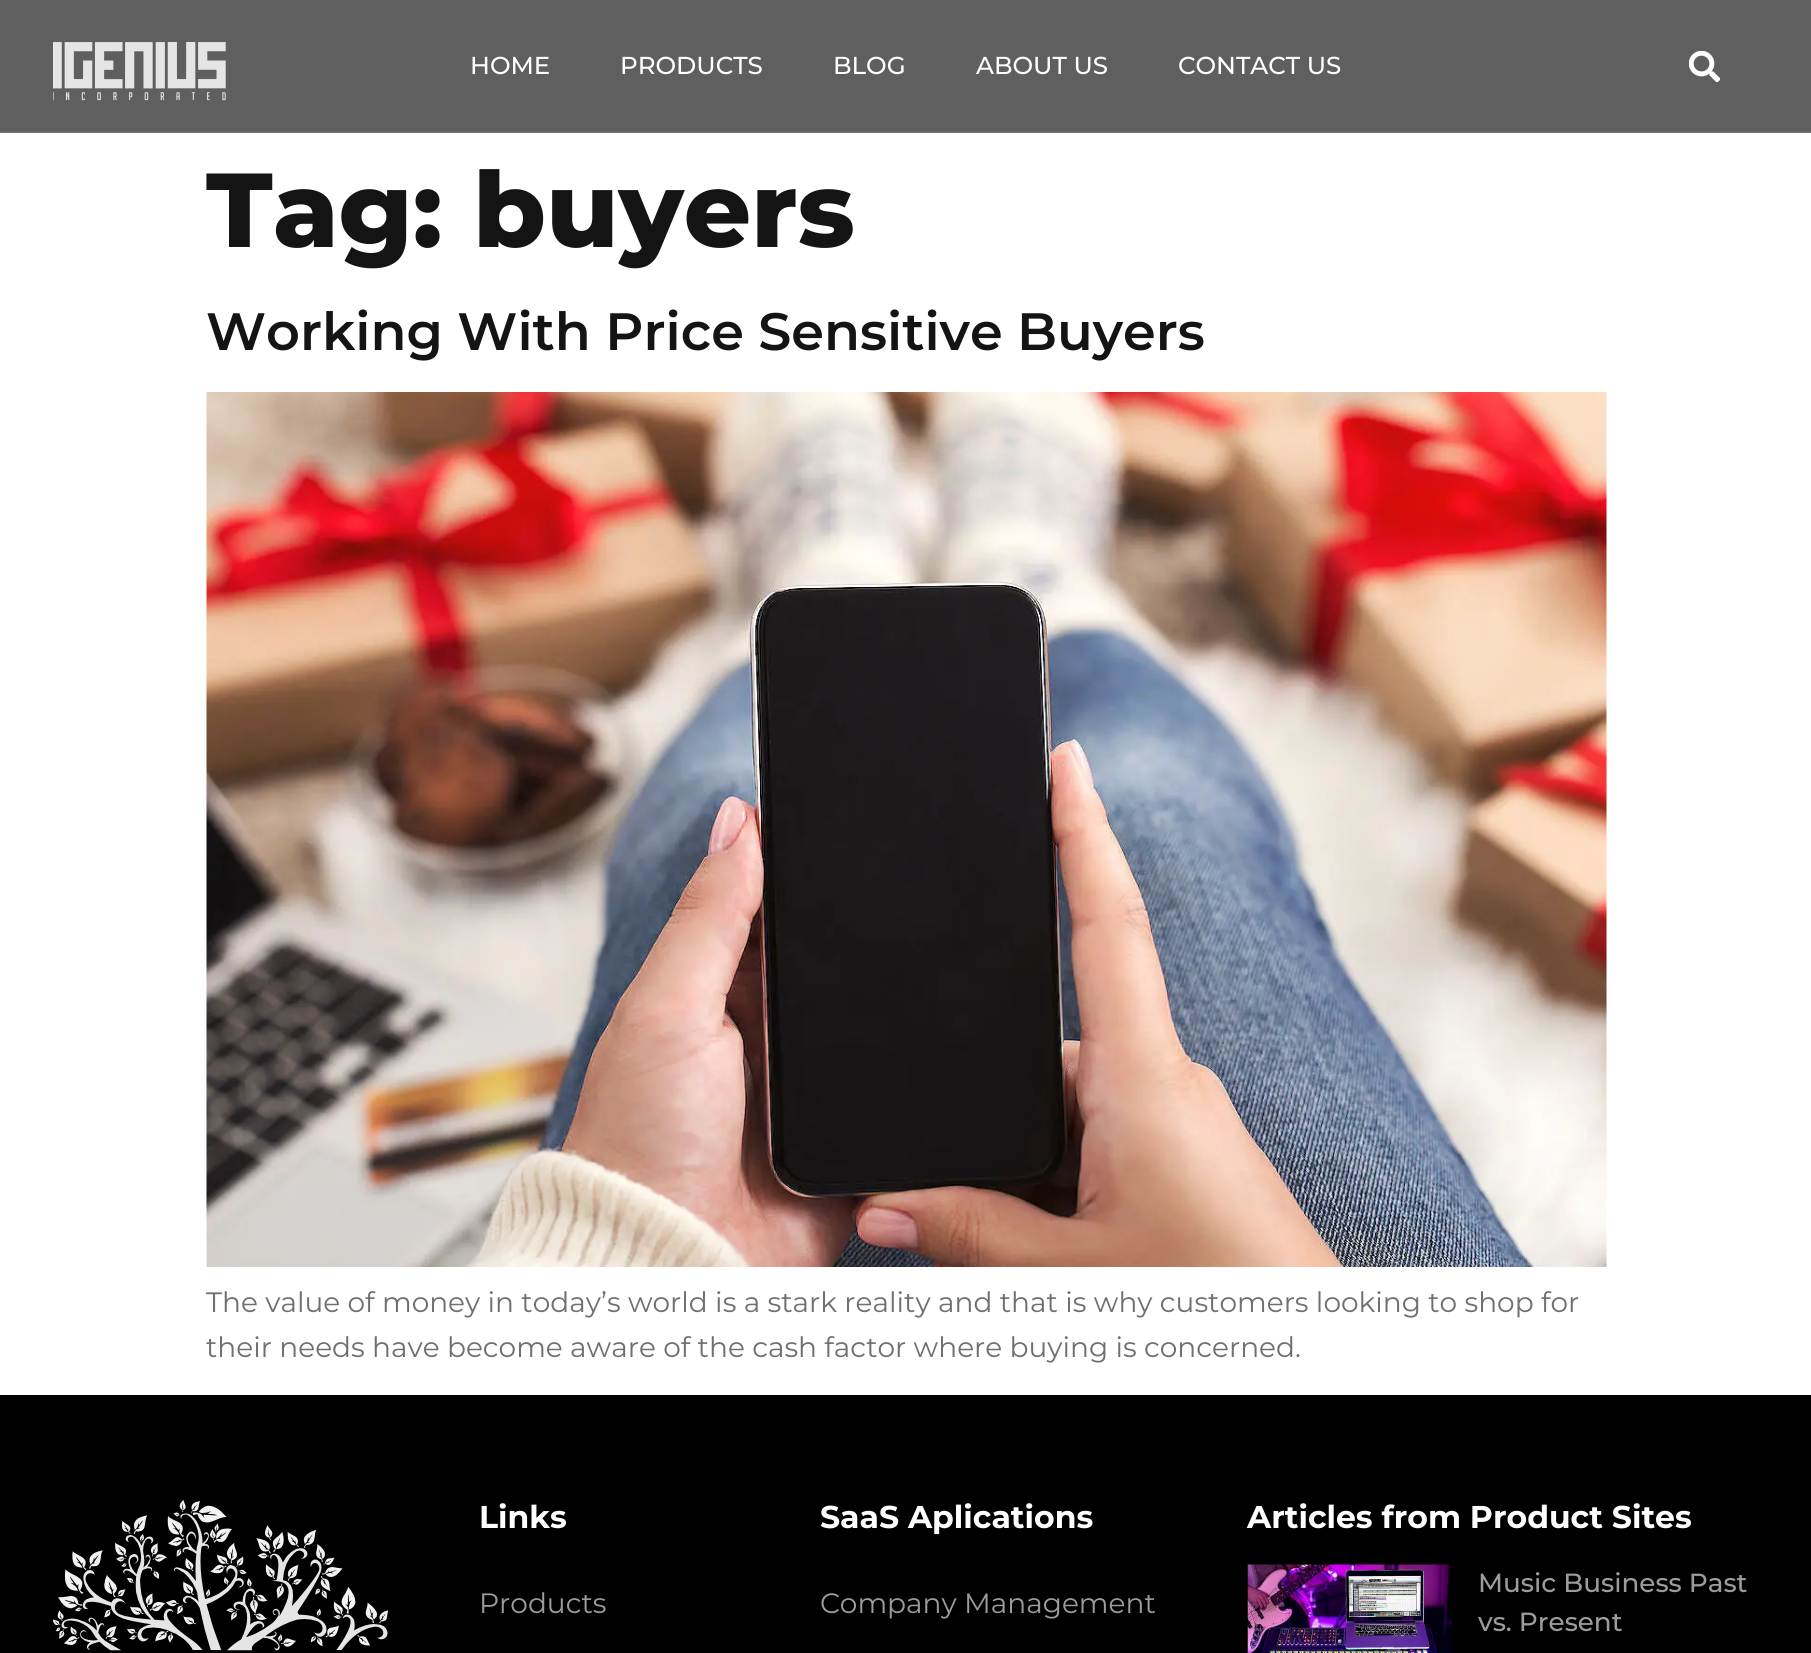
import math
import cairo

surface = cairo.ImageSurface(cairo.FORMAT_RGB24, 1811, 1653)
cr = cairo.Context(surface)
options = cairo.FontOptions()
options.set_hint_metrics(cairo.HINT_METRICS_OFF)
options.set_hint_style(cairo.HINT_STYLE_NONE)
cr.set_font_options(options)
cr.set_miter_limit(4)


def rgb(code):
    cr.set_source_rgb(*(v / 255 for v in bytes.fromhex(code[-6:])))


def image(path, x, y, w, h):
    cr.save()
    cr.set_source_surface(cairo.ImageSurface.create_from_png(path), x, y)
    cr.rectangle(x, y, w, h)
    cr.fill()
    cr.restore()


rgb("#ffffff")
cr.paint()
rgb("#5f5f5f")
cr.rectangle(0, 0, 1811, 131)
cr.fill()
rgb("#6f6f6f")
cr.rectangle(0, 131, 1811, 2)
cr.fill()
image("img/1.png", 53, 42, 173, 59)
image("img/2.png", 1689, 51, 31, 31)
image("img/3.png", 206, 392, 1401, 875)
rgb("#000000")
cr.rectangle(0, 1395, 1811, 258)
cr.fill()
image("img/4.png", 53, 1500, 336, 151)
image("img/5.png", 1247, 1564, 206, 89)
cr.select_font_face("Montserrat Medium")
cr.set_font_size(24.5)
rgb("#ffffff")
for x, y, s in [
    (470, 74, "HOME"),
    (620, 74, "PRODUCTS"),
    (833, 74, "BLOG"),
    (976, 74, "ABOUT US"),
    (1178, 74, "CONTACT US"),
]:
    cr.move_to(x, y)
    cr.show_text(s)
cr.select_font_face("Montserrat ExtraBold")
cr.set_font_size(105)
rgb("#141414")
cr.move_to(206, 247)
cr.show_text("Tag: buyers")
cr.select_font_face("Montserrat SemiBold")
cr.set_font_size(52.5)
cr.move_to(206, 350)
cr.show_text("Working With Price Sensitive Buyers")
cr.select_font_face("Montserrat")
cr.set_font_size(28)
rgb("#6f6f6f")
cr.move_to(206, 1312)
cr.show_text("The value of money in today’s world is a stark reality and that is why customers looking to shop for")
cr.move_to(206, 1357)
cr.show_text("their needs have become aware of the cash factor where buying is concerned.")
cr.select_font_face("Montserrat", cairo.FONT_SLANT_NORMAL, cairo.FONT_WEIGHT_BOLD)
cr.set_font_size(31.5)
rgb("#ffffff")
cr.move_to(479, 1528)
cr.show_text("Links")
cr.select_font_face("Montserrat")
cr.set_font_size(28)
rgb("#9c9c9c")
cr.move_to(479, 1613)
cr.show_text("Products")
cr.select_font_face("Montserrat", cairo.FONT_SLANT_NORMAL, cairo.FONT_WEIGHT_BOLD)
cr.set_font_size(31.5)
rgb("#ffffff")
cr.move_to(820, 1528)
cr.show_text("SaaS Aplications")
cr.select_font_face("Montserrat")
cr.set_font_size(28)
rgb("#9c9c9c")
cr.move_to(820, 1613)
cr.show_text("Company Management")
cr.select_font_face("Montserrat", cairo.FONT_SLANT_NORMAL, cairo.FONT_WEIGHT_BOLD)
cr.set_font_size(31.5)
rgb("#ffffff")
cr.move_to(1247, 1528)
cr.show_text("Articles from Product Sites")
cr.select_font_face("Montserrat Medium")
cr.set_font_size(26.25)
rgb("#9c9c9c")
cr.move_to(1478, 1592)
cr.show_text("Music Business Past")
cr.move_to(1478, 1631)
cr.show_text("vs. Present")
surface.write_to_png("page.png")
